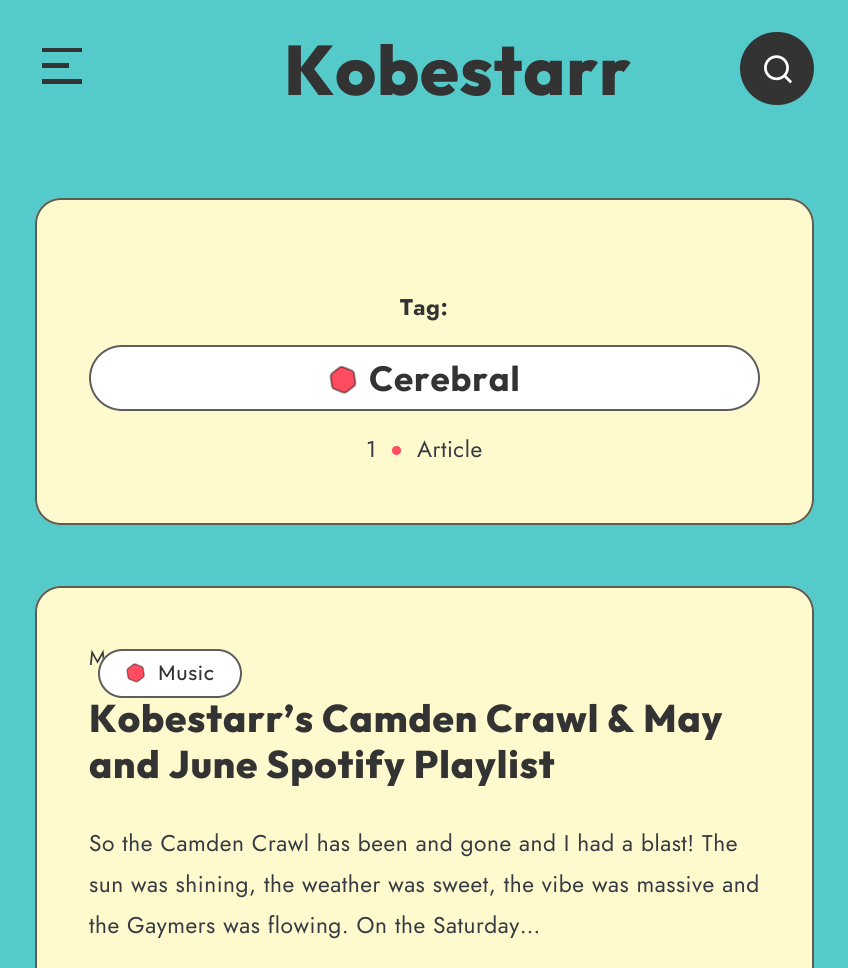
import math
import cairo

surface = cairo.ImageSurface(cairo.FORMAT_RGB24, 848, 968)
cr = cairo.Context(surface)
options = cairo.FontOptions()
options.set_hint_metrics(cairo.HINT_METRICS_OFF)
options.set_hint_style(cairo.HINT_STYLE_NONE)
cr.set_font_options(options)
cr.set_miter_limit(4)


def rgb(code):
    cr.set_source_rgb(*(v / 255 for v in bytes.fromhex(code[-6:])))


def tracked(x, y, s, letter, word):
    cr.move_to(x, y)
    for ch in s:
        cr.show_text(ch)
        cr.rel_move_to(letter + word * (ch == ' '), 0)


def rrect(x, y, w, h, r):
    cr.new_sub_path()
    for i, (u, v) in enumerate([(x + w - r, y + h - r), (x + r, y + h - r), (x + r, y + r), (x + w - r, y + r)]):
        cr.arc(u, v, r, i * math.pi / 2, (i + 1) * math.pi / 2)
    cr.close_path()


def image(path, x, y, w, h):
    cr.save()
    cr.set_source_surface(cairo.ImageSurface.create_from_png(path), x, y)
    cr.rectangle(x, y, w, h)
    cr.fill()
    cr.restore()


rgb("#54cbca")
cr.paint()
rgb("#333333")
cr.new_path()
cr.move_to(42, 48)
cr.line_to(82, 48)
cr.line_to(82, 52)
cr.line_to(42, 52)
cr.close_path()
cr.move_to(42, 63)
cr.line_to(69, 63)
cr.line_to(69, 68)
cr.line_to(42, 68)
cr.close_path()
cr.move_to(42, 79)
cr.line_to(82, 79)
cr.line_to(82, 84)
cr.line_to(42, 84)
cr.close_path()
cr.fill()
rrect(741, 33, 72, 71, 35.5)
cr.fill_preserve()
cr.stroke()
image("img/1.png", 764, 55, 29, 29)
rgb("#fffacd")
rrect(35, 198, 779, 327, 26)
cr.fill()
rrect(36, 199, 777, 325, 25)
cr.set_source_rgba(0.153, 0.153, 0.153, 0.75)
cr.stroke()
rgb("#ffffff")
rrect(89, 345, 671, 66, 33)
cr.fill()
rrect(90, 346, 669, 64, 32)
cr.set_source_rgba(0.153, 0.153, 0.153, 0.75)
cr.stroke()
image("img/2.png", 329, 366, 28, 28)
rgb("#ff4c60")
cr.arc(396.5, 450.5, 4.5, 0, 2 * math.pi)
cr.fill()
rgb("#fffacd")
rrect(35, 586, 779, 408, 26)
cr.fill()
rrect(36, 587, 777, 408, 25)
cr.set_source_rgba(0.153, 0.153, 0.153, 0.75)
cr.stroke()
rgb("#fffacd")
rrect(37, 588, 775, 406, 26)
cr.fill()
cr.select_font_face("Outfit ExtraBold")
cr.set_font_size(70)
rgb("#333333")
tracked(284, 95, "Kobestarr", 0.9, 0)
cr.select_font_face("Jost", cairo.FONT_SLANT_NORMAL, cairo.FONT_WEIGHT_BOLD)
cr.set_font_size(22.75)
tracked(400, 315, "Tag:", 0.53, 0)
cr.select_font_face("Outfit", cairo.FONT_SLANT_NORMAL, cairo.FONT_WEIGHT_BOLD)
cr.set_font_size(35)
tracked(369, 391, "Cerebral", 0.9, 0)
cr.select_font_face("Jost")
cr.set_font_size(22.75)
rgb("#353a44")
tracked(366, 457, "1", 0.53, 0)
tracked(417, 457, "Article", 0.53, 0)
cr.set_font_size(21)
tracked(89, 665, "M", 0.53, 0)
rgb("#ffffff")
rrect(98, 649, 144, 49, 24.5)
cr.fill()
rrect(99, 650, 142, 47, 23.5)
cr.set_source_rgba(0.153, 0.153, 0.153, 0.75)
cr.stroke()
image("img/3.png", 126, 663, 19, 20)
cr.select_font_face("Outfit")
rgb("#333333")
tracked(158, 680, "Music", 0.9, 0)
cr.select_font_face("Outfit ExtraBold")
cr.set_font_size(38.5)
tracked(89, 732, "Kobestarr’s Camden Crawl & May", 0.9, 0)
tracked(89, 778, "and June Spotify Playlist", 0.9, 0)
cr.select_font_face("Jost")
cr.set_font_size(22.75)
rgb("#353a44")
for x, y, s in [
    (89, 851, "So the Camden Crawl has been and gone and I had a blast! The"),
    (89, 892, "sun was shining, the weather was sweet, the vibe was massive and"),
    (89, 933, "the Gaymers was flowing. On the Saturday…"),
]:
    tracked(x, y, s, 0.53, 0)
surface.write_to_png("page.png")
